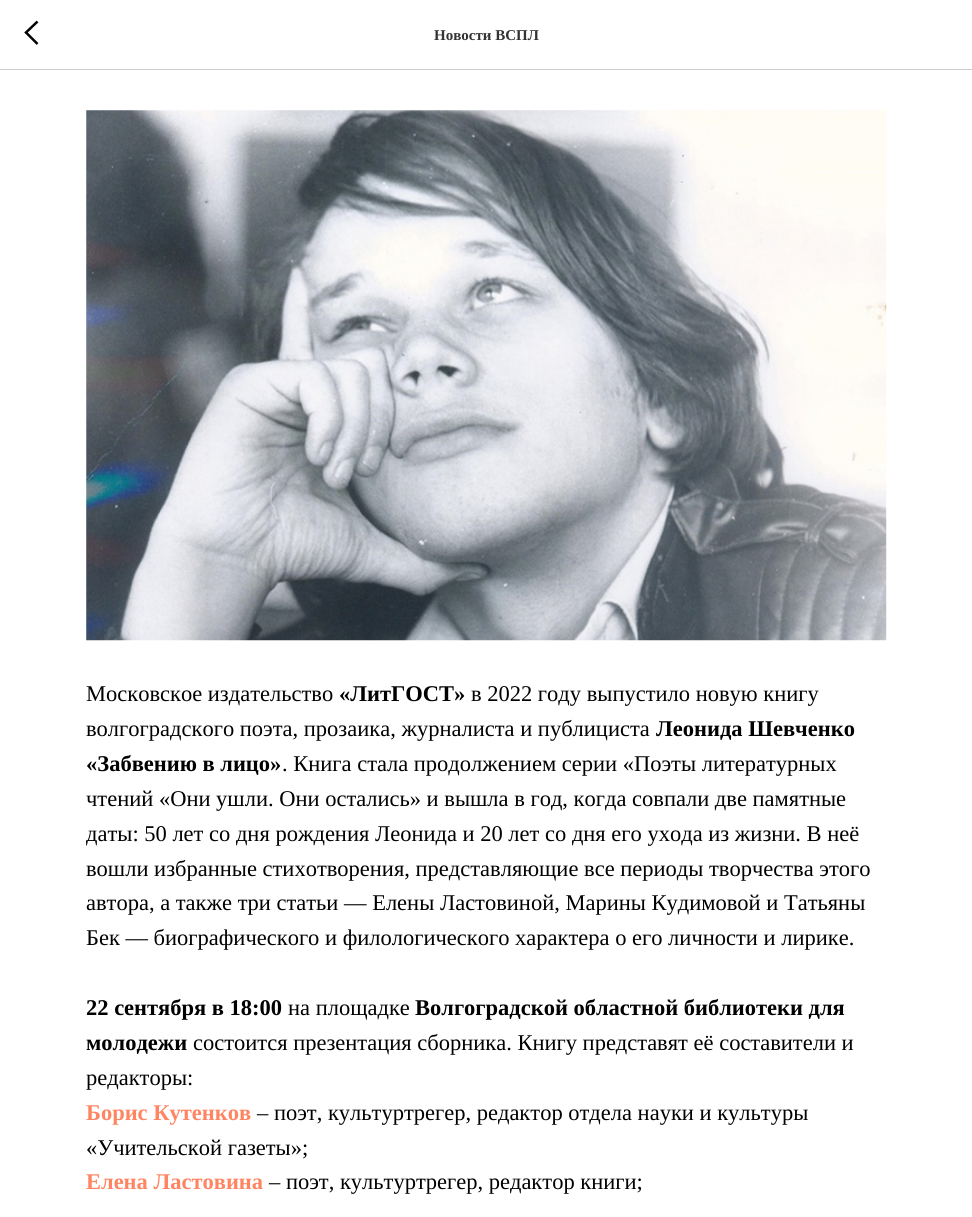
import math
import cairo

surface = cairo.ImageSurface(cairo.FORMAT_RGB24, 972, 1217)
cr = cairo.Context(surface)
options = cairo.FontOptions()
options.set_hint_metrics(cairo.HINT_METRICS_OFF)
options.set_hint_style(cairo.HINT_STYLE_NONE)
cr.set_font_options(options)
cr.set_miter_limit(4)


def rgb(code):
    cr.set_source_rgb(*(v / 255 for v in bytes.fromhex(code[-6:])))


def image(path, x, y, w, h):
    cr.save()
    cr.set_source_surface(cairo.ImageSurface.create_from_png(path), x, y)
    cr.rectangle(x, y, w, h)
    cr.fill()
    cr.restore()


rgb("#ffffff")
cr.paint()
rgb("#cccccc")
cr.rectangle(0, 69, 972, 1)
cr.fill()
cr.new_path()
cr.move_to(37.5, 44)
cr.line_to(26, 32.5)
cr.line_to(37.5, 21.5)
rgb("#000000")
cr.set_line_width(2.5)
cr.stroke()
image("img/1.png", 86, 110, 801, 531)
cr.select_font_face("Liberation Serif", cairo.FONT_SLANT_NORMAL, cairo.FONT_WEIGHT_BOLD)
cr.set_font_size(15)
rgb("#333333")
cr.move_to(434, 40)
cr.show_text("Новости ВСПЛ")
cr.select_font_face("Liberation Serif")
cr.set_font_size(22.5)
rgb("#000000")
cr.move_to(86, 701)
cr.show_text("Московское издательство")
cr.select_font_face("Liberation Serif", cairo.FONT_SLANT_NORMAL, cairo.FONT_WEIGHT_BOLD)
cr.move_to(339, 701)
cr.show_text("«ЛитГОСТ»")
cr.select_font_face("Liberation Serif")
cr.move_to(471, 701)
cr.show_text("в 2022 году выпустило новую книгу")
cr.move_to(86, 736)
cr.show_text("волгоградского поэта, прозаика, журналиста и публициста")
cr.select_font_face("Liberation Serif", cairo.FONT_SLANT_NORMAL, cairo.FONT_WEIGHT_BOLD)
cr.move_to(656, 736)
cr.show_text("Леонида Шевченко")
cr.move_to(86, 771)
cr.show_text("«Забвению в лицо»")
cr.select_font_face("Liberation Serif")
for x, y, s in [
    (282, 771, ". Книга стала продолжением серии «Поэты литературных"),
    (86, 806, "чтений «Они ушли. Они остались» и вышла в год, когда совпали две памятные"),
    (86, 841, "даты: 50 лет со дня рождения Леонида и 20 лет со дня его ухода из жизни. В неё"),
    (86, 876, "вошли избранные стихотворения, представляющие все периоды творчества этого"),
    (86, 910, "автора, а также три статьи — Елены Ластовиной, Марины Кудимовой и Татьяны"),
    (86, 945, "Бек — биографического и филологического характера о его личности и лирике."),
]:
    cr.move_to(x, y)
    cr.show_text(s)
cr.select_font_face("Liberation Serif", cairo.FONT_SLANT_NORMAL, cairo.FONT_WEIGHT_BOLD)
cr.move_to(86, 1015)
cr.show_text("22 сентября в 18:00")
cr.select_font_face("Liberation Serif")
cr.move_to(288, 1015)
cr.show_text("на площадке")
cr.select_font_face("Liberation Serif", cairo.FONT_SLANT_NORMAL, cairo.FONT_WEIGHT_BOLD)
cr.move_to(415, 1015)
cr.show_text("Волгоградской областной библиотеки для")
cr.move_to(86, 1050)
cr.show_text("молодежи")
cr.select_font_face("Liberation Serif")
cr.move_to(193, 1050)
cr.show_text("состоится презентация сборника. Книгу представят её составители и")
cr.move_to(86, 1085)
cr.show_text("редакторы:")
cr.select_font_face("Liberation Serif", cairo.FONT_SLANT_NORMAL, cairo.FONT_WEIGHT_BOLD)
rgb("#ff8562")
cr.move_to(86, 1120)
cr.show_text("Борис Кутенков")
cr.select_font_face("Liberation Serif")
rgb("#000000")
cr.move_to(257, 1120)
cr.show_text("– поэт, культуртрегер, редактор отдела науки и культуры")
cr.move_to(86, 1155)
cr.show_text("«Учительской газеты»;")
cr.select_font_face("Liberation Serif", cairo.FONT_SLANT_NORMAL, cairo.FONT_WEIGHT_BOLD)
rgb("#ff8562")
cr.move_to(86, 1189)
cr.show_text("Елена Ластовина")
cr.select_font_face("Liberation Serif")
rgb("#000000")
cr.move_to(269, 1189)
cr.show_text("– поэт, культуртрегер, редактор книги;")
surface.write_to_png("page.png")
